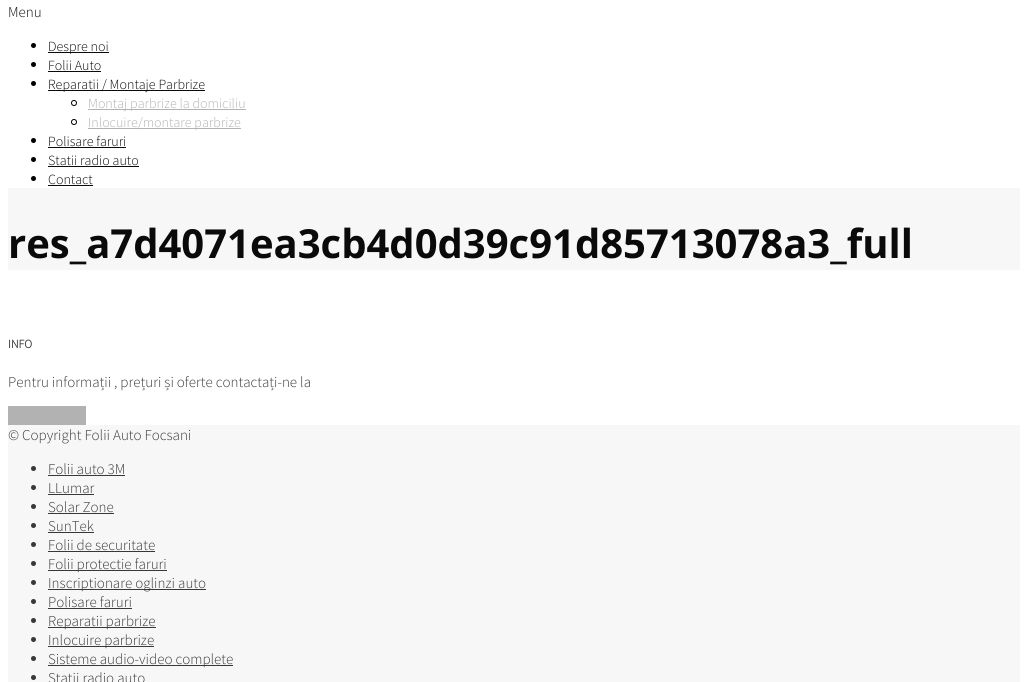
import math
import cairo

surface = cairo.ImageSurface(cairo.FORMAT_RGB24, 1028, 682)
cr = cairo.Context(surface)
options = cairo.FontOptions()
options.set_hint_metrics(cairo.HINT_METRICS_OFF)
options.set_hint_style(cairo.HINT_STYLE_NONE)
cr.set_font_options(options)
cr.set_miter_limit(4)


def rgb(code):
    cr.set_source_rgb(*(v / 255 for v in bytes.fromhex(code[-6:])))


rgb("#ffffff")
cr.paint()
rgb("#f7f7f7")
cr.rectangle(8, 188, 1012, 82)
cr.fill()
rgb("#000000")
cr.arc(33.5, 45.5, 2.5, 0, 2 * math.pi)
cr.fill()
rgb("#0a0a0a")
cr.rectangle(48, 52, 61, 1)
cr.fill()
rgb("#000000")
cr.arc(33.5, 64.5, 2.5, 0, 2 * math.pi)
cr.fill()
rgb("#0a0a0a")
cr.rectangle(48, 71, 53, 1)
cr.fill()
rgb("#000000")
cr.arc(33.5, 83.5, 2.5, 0, 2 * math.pi)
cr.fill()
rgb("#0a0a0a")
cr.rectangle(48, 90, 157, 1)
cr.fill()
cr.arc(74, 103, 2.5, 0, 2 * math.pi)
rgb("#000000")
cr.set_line_width(1)
cr.stroke()
rgb("#b2b2b2")
cr.rectangle(88, 109, 158, 1)
cr.fill()
cr.arc(74, 122, 2.5, 0, 2 * math.pi)
rgb("#000000")
cr.stroke()
rgb("#b2b2b2")
cr.rectangle(88, 128, 153, 1)
cr.fill()
rgb("#000000")
cr.arc(33.5, 140.5, 2.5, 0, 2 * math.pi)
cr.fill()
rgb("#0a0a0a")
cr.rectangle(48, 147, 78, 1)
cr.fill()
rgb("#000000")
cr.arc(33.5, 159.5, 2.5, 0, 2 * math.pi)
cr.fill()
rgb("#0a0a0a")
cr.rectangle(48, 166, 91, 1)
cr.fill()
rgb("#000000")
cr.arc(33.5, 178.5, 2.5, 0, 2 * math.pi)
cr.fill()
for x, y, w, h, color in [
    (48, 185, 45, 1, "#0a0a0a"),
    (8, 406, 78, 19, "#b2b2b2"),
    (8, 425, 1012, 257, "#f7f7f7"),
]:
    rgb(color)
    cr.rectangle(x, y, w, h)
    cr.fill()
rgb("#383838")
cr.arc(33.5, 468.5, 2.5, 0, 2 * math.pi)
cr.fill()
cr.rectangle(48, 475, 77, 1)
cr.fill()
cr.arc(33.5, 487.5, 2.5, 0, 2 * math.pi)
cr.fill()
cr.rectangle(48, 494, 46, 1)
cr.fill()
cr.arc(33.5, 506.5, 2.5, 0, 2 * math.pi)
cr.fill()
cr.rectangle(48, 513, 66, 1)
cr.fill()
cr.arc(33.5, 525.5, 2.5, 0, 2 * math.pi)
cr.fill()
cr.rectangle(48, 532, 46, 1)
cr.fill()
cr.arc(33.5, 544.5, 2.5, 0, 2 * math.pi)
cr.fill()
cr.rectangle(48, 551, 107, 1)
cr.fill()
cr.arc(33.5, 563.5, 2.5, 0, 2 * math.pi)
cr.fill()
cr.rectangle(48, 570, 119, 1)
cr.fill()
cr.arc(33.5, 582.5, 2.5, 0, 2 * math.pi)
cr.fill()
cr.rectangle(48, 589, 158, 1)
cr.fill()
cr.arc(33.5, 601.5, 2.5, 0, 2 * math.pi)
cr.fill()
cr.rectangle(48, 608, 84, 1)
cr.fill()
cr.arc(33.5, 620.5, 2.5, 0, 2 * math.pi)
cr.fill()
cr.rectangle(48, 627, 108, 1)
cr.fill()
cr.arc(33.5, 639.5, 2.5, 0, 2 * math.pi)
cr.fill()
cr.rectangle(48, 646, 106, 1)
cr.fill()
cr.arc(33.5, 658.5, 2.5, 0, 2 * math.pi)
cr.fill()
cr.rectangle(48, 665, 185, 1)
cr.fill()
cr.arc(33.5, 677.5, 2.5, 0, 2 * math.pi)
cr.fill()
cr.select_font_face("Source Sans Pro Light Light")
cr.set_font_size(15)
rgb("#0a0a0a")
cr.move_to(8, 17)
cr.show_text("Menu")
cr.set_font_size(14)
for x, y, s in [
    (48, 51, "Despre noi"),
    (48, 70, "Folii Auto"),
    (48, 89, "Reparatii / Montaje Parbrize"),
]:
    cr.move_to(x, y)
    cr.show_text(s)
rgb("#b2b2b2")
cr.move_to(88, 108)
cr.show_text("Montaj parbrize la domiciliu")
cr.move_to(88, 127)
cr.show_text("Inlocuire/montare parbrize")
rgb("#0a0a0a")
for x, y, s in [
    (48, 146, "Polisare faruri"),
    (48, 165, "Statii radio auto"),
    (48, 184, "Contact"),
]:
    cr.move_to(x, y)
    cr.show_text(s)
cr.select_font_face("Open Sans", cairo.FONT_SLANT_NORMAL, cairo.FONT_WEIGHT_BOLD)
cr.set_font_size(40)
cr.move_to(8, 258)
cr.show_text("res_a7d4071ea3cb4d0d39c91d85713078a3_full")
cr.select_font_face("Source Sans Pro Light", cairo.FONT_SLANT_NORMAL, cairo.FONT_WEIGHT_BOLD)
cr.set_font_size(12)
rgb("#383838")
cr.move_to(8, 348)
cr.show_text("INFO")
cr.select_font_face("Source Sans Pro Light Light")
cr.set_font_size(15)
for x, y, s in [
    (8, 387, "Pentru informații , prețuri și oferte contactați-ne la"),
    (8, 440, "© Copyright Folii Auto Focsani"),
    (48, 474, "Folii auto 3M"),
    (48, 493, "LLumar"),
    (48, 512, "Solar Zone"),
    (48, 531, "SunTek"),
    (48, 550, "Folii de securitate"),
    (48, 569, "Folii protectie faruri"),
    (48, 588, "Inscriptionare oglinzi auto"),
    (48, 607, "Polisare faruri"),
    (48, 626, "Reparatii parbrize"),
    (48, 645, "Inlocuire parbrize"),
    (48, 664, "Sisteme audio-video complete"),
    (48, 683, "Statii radio auto"),
]:
    cr.move_to(x, y)
    cr.show_text(s)
surface.write_to_png("page.png")
